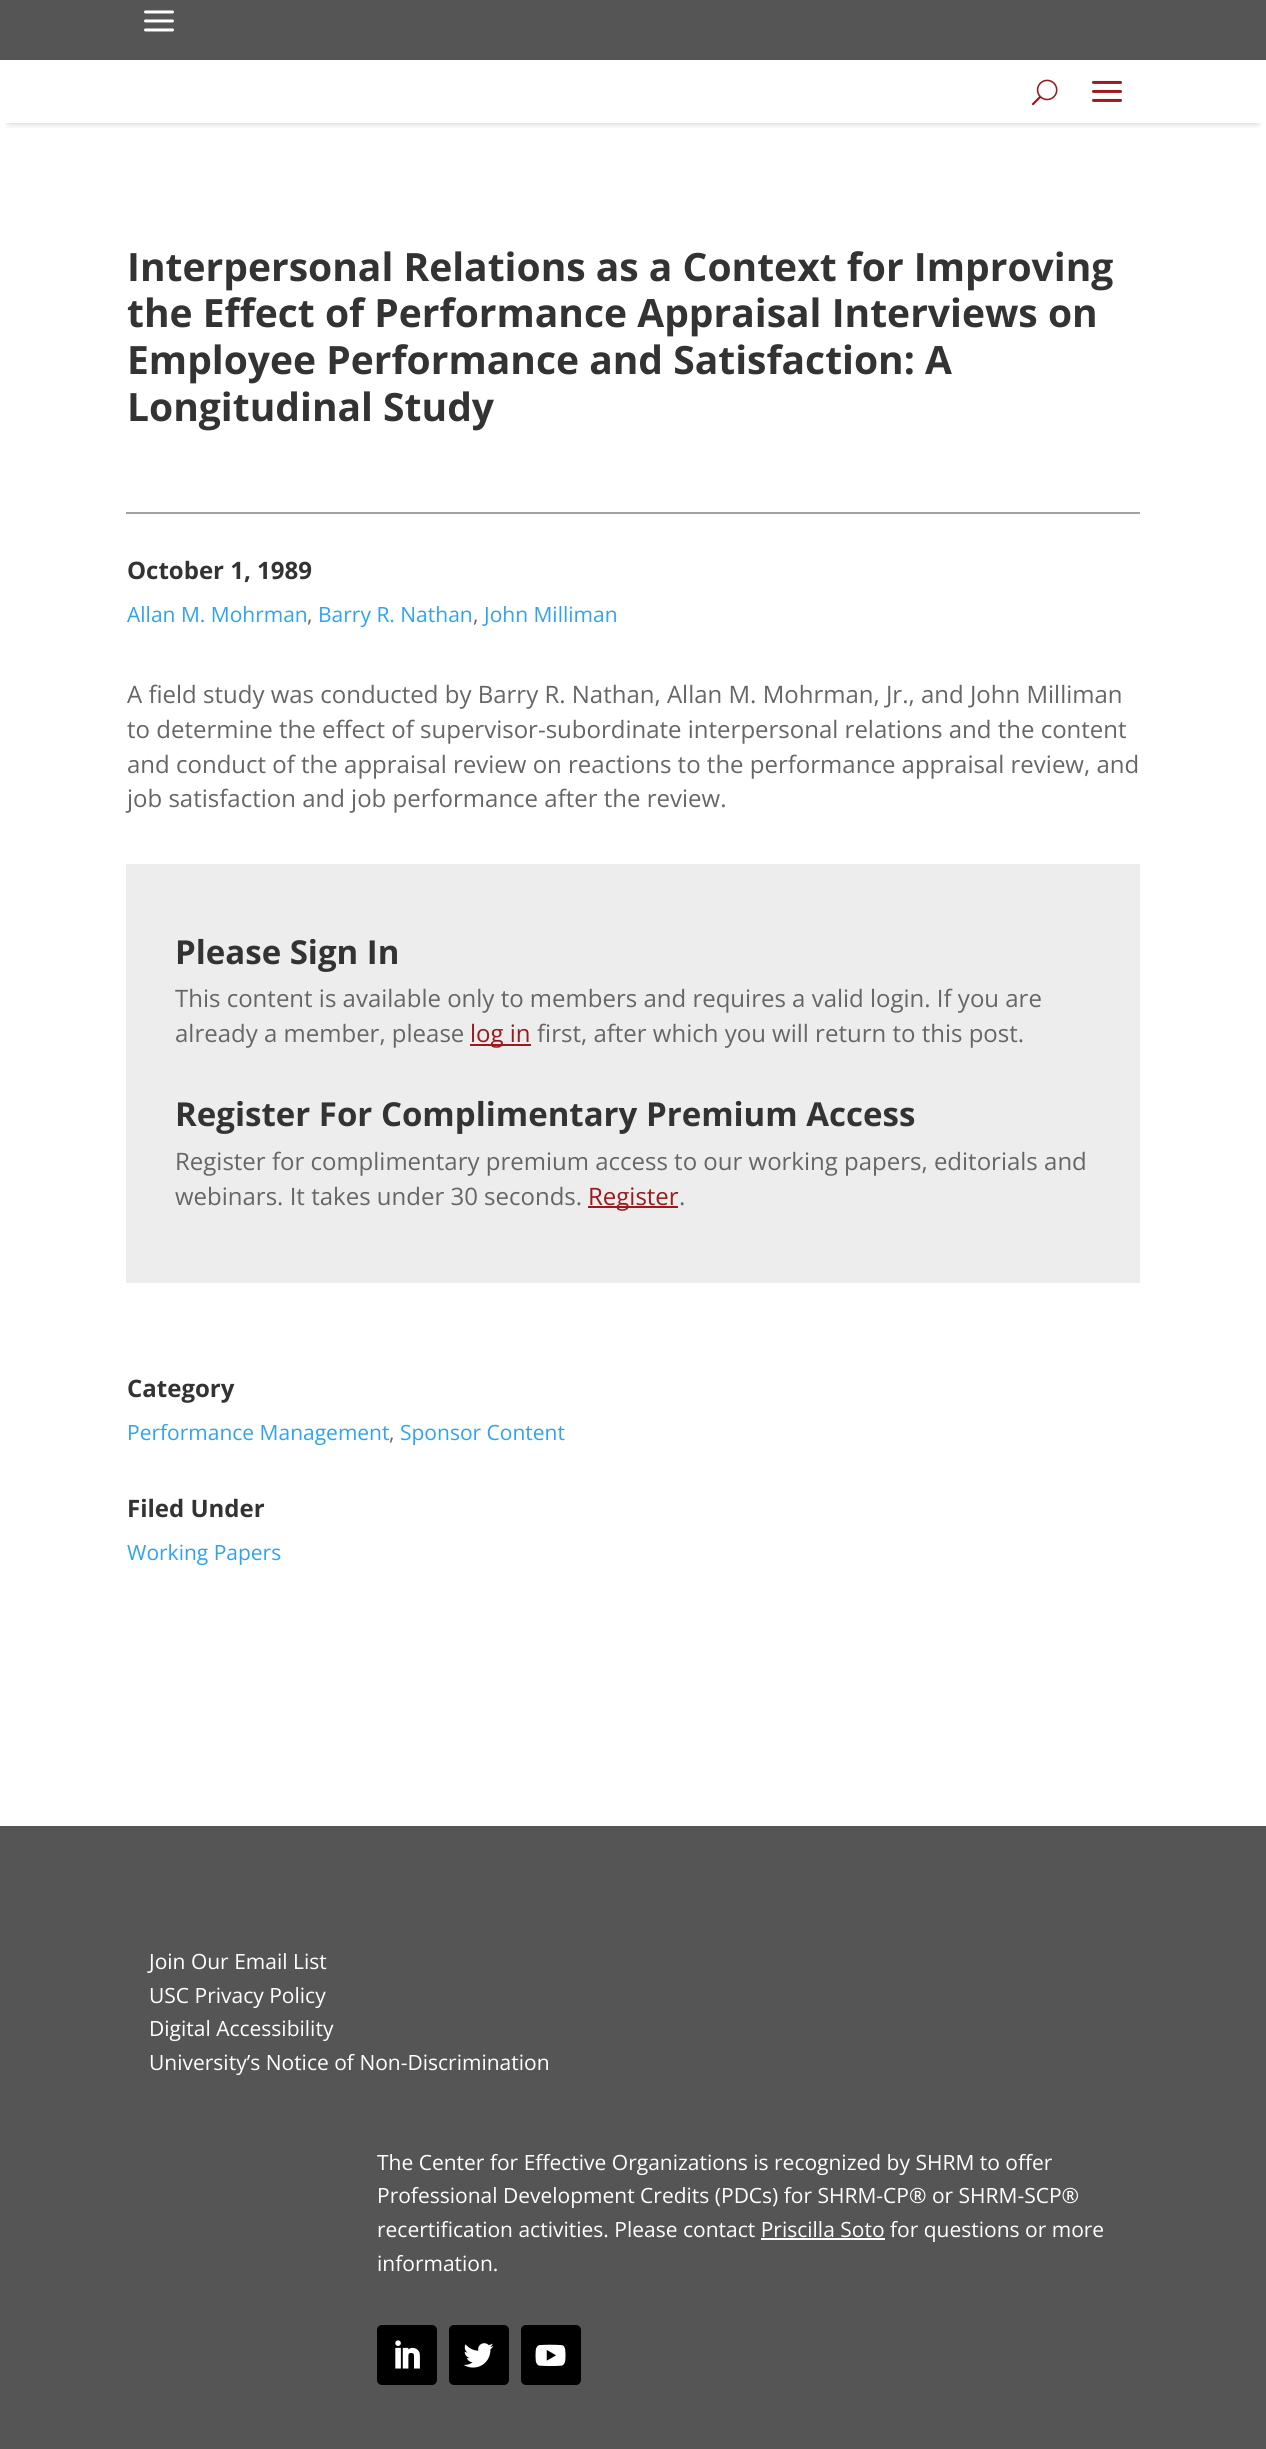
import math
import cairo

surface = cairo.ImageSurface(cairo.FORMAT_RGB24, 1266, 2449)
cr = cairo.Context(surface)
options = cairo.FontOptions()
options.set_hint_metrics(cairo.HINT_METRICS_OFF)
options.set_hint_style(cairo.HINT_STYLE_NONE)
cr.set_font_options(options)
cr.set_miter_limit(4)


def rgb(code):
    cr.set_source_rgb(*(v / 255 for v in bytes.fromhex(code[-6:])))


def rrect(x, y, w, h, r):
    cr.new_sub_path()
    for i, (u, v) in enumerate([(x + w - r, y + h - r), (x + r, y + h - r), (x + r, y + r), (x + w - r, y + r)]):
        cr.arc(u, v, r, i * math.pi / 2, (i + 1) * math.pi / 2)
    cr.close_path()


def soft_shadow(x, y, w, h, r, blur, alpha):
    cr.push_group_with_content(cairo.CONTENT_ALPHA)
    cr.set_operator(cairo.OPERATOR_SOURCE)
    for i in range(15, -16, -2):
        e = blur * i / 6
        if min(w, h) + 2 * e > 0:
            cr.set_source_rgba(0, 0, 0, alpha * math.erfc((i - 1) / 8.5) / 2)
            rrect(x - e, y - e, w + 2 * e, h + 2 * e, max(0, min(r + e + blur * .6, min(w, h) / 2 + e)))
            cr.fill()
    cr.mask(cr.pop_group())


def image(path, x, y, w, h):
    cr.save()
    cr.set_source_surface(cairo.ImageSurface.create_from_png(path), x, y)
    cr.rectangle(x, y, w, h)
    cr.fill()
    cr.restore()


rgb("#ffffff")
cr.paint()
rgb("#555555")
cr.rectangle(0, 0, 1266, 60)
cr.fill()
image("img/1.png", 144, 10, 30, 22)
cr.save()
cr.rectangle(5, 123, 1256, 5)
cr.clip()
rgb("#000000")
soft_shadow(9, 77, 1248, 45, 0, 4, 0.3)
cr.restore()
image("img/2.png", 1031, 79, 27, 27)
image("img/3.png", 1092, 80, 30, 22)
for x, y, w, h, color in [
    (126, 512, 1014, 2, "#a2a2a2"),
    (126, 864, 1014, 419, "#ededed"),
    (470, 1044, 61, 2, "#991b1e"),
    (588, 1206, 90, 2, "#991b1e"),
    (0, 1826, 1266, 623, "#555555"),
    (761, 2238, 124, 2, "#ffffff"),
]:
    rgb(color)
    cr.rectangle(x, y, w, h)
    cr.fill()
rgb("#000000")
rrect(377, 2325, 60, 60, 5)
cr.fill()
image("img/4.png", 395, 2340, 25, 29)
rrect(449, 2325, 60, 60, 5)
cr.fill()
image("img/5.png", 463, 2343, 31, 25)
rrect(521, 2325, 60, 60, 5)
cr.fill()
image("img/6.png", 535, 2344, 31, 23)
cr.select_font_face("Open Sans", cairo.FONT_SLANT_NORMAL, cairo.FONT_WEIGHT_BOLD)
cr.set_font_size(39)
rgb("#333333")
for x, y, s in [
    (127, 281, "Interpersonal Relations as a Context for Improving"),
    (127, 327, "the Effect of Performance Appraisal Interviews on"),
    (127, 374, "Employee Performance and Satisfaction: A"),
    (127, 421, "Longitudinal Study"),
]:
    cr.move_to(x, y)
    cr.show_text(s)
cr.set_font_size(24)
cr.move_to(127, 579)
cr.show_text("October 1, 1989")
cr.select_font_face("Open Sans")
cr.set_font_size(21)
rgb("#2ea3f2")
cr.move_to(127, 622)
cr.show_text("Allan M. Mohrman")
rgb("#666666")
cr.move_to(307, 622)
cr.show_text(",")
rgb("#2ea3f2")
cr.move_to(318, 622)
cr.show_text("Barry R. Nathan")
rgb("#666666")
cr.move_to(473, 622)
cr.show_text(",")
rgb("#2ea3f2")
cr.move_to(484, 622)
cr.show_text("John Milliman")
cr.set_font_size(24)
rgb("#666666")
for x, y, s in [
    (127, 703, "A field study was conducted by Barry R. Nathan, Allan M. Mohrman, Jr., and John Milliman"),
    (127, 738, "to determine the effect of supervisor-subordinate interpersonal relations and the content"),
    (127, 773, "and conduct of the appraisal review on reactions to the performance appraisal review, and"),
    (127, 807, "job satisfaction and job performance after the review."),
]:
    cr.move_to(x, y)
    cr.show_text(s)
cr.select_font_face("Open Sans", cairo.FONT_SLANT_NORMAL, cairo.FONT_WEIGHT_BOLD)
cr.set_font_size(33)
rgb("#333333")
cr.move_to(175, 964)
cr.show_text("Please Sign In")
cr.select_font_face("Open Sans")
cr.set_font_size(24)
rgb("#666666")
cr.move_to(175, 1007)
cr.show_text("This content is available only to members and requires a valid login. If you are")
cr.move_to(175, 1042)
cr.show_text("already a member, please")
rgb("#991b1e")
cr.move_to(470, 1042)
cr.show_text("log in")
rgb("#666666")
cr.move_to(537, 1042)
cr.show_text("first, after which you will return to this post.")
cr.select_font_face("Open Sans", cairo.FONT_SLANT_NORMAL, cairo.FONT_WEIGHT_BOLD)
cr.set_font_size(33)
rgb("#333333")
cr.move_to(175, 1126)
cr.show_text("Register For Complimentary Premium Access")
cr.select_font_face("Open Sans")
cr.set_font_size(24)
rgb("#666666")
cr.move_to(175, 1170)
cr.show_text("Register for complimentary premium access to our working papers, editorials and")
cr.move_to(175, 1205)
cr.show_text("webinars. It takes under 30 seconds.")
rgb("#991b1e")
cr.move_to(588, 1205)
cr.show_text("Register")
rgb("#666666")
cr.move_to(679, 1205)
cr.show_text(".")
cr.select_font_face("Open Sans", cairo.FONT_SLANT_NORMAL, cairo.FONT_WEIGHT_BOLD)
rgb("#333333")
cr.move_to(127, 1397)
cr.show_text("Category")
cr.select_font_face("Open Sans")
cr.set_font_size(21)
rgb("#2ea3f2")
cr.move_to(127, 1440)
cr.show_text("Performance Management")
rgb("#666666")
cr.move_to(389, 1440)
cr.show_text(",")
rgb("#2ea3f2")
cr.move_to(400, 1440)
cr.show_text("Sponsor Content")
cr.select_font_face("Open Sans", cairo.FONT_SLANT_NORMAL, cairo.FONT_WEIGHT_BOLD)
cr.set_font_size(24)
rgb("#333333")
cr.move_to(127, 1517)
cr.show_text("Filed Under")
cr.select_font_face("Open Sans")
cr.set_font_size(21)
rgb("#2ea3f2")
cr.move_to(127, 1560)
cr.show_text("Working Papers")
rgb("#ffffff")
for x, y, s in [
    (149, 1969, "Join Our Email List"),
    (149, 2003, "USC Privacy Policy"),
    (149, 2036, "Digital Accessibility"),
    (149, 2070, "University’s Notice of Non-Discrimination"),
    (377, 2170, "The Center for Effective Organizations is recognized by SHRM to offer"),
    (377, 2203, "Professional Development Credits (PDCs) for SHRM-CP® or SHRM-SCP®"),
    (377, 2237, "recertification activities. Please contact Priscilla Soto for questions or more"),
    (377, 2271, "information."),
]:
    cr.move_to(x, y)
    cr.show_text(s)
surface.write_to_png("page.png")
